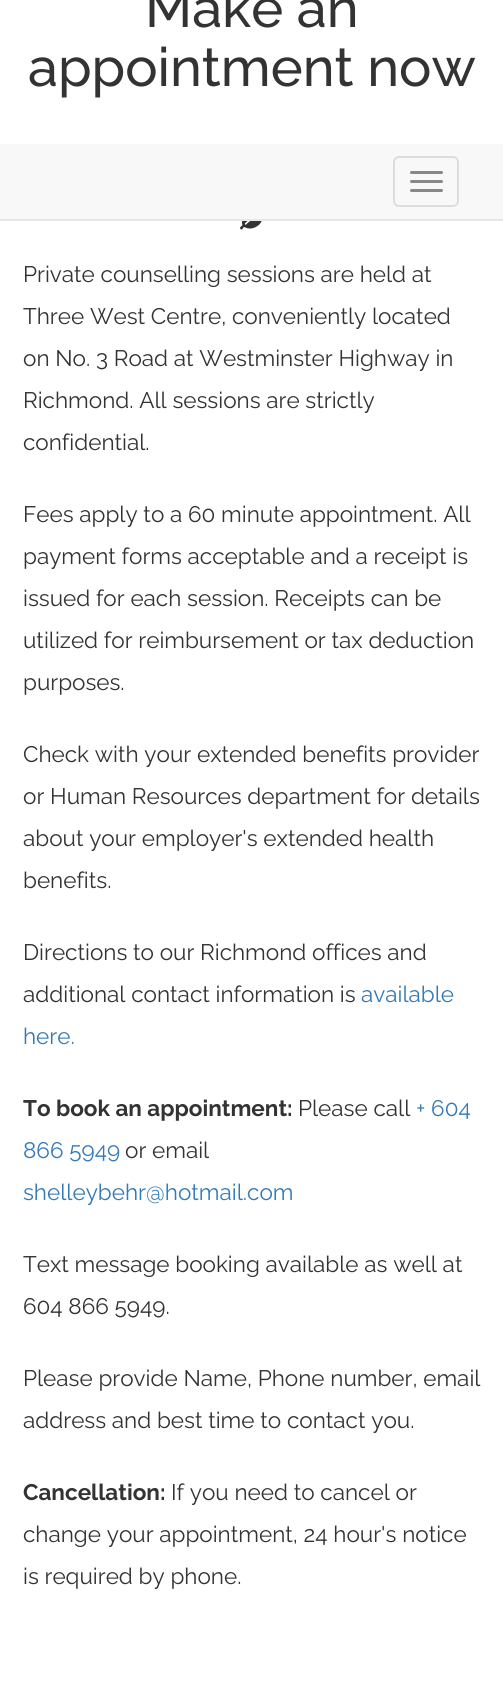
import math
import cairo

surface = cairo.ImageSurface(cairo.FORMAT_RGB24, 503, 1707)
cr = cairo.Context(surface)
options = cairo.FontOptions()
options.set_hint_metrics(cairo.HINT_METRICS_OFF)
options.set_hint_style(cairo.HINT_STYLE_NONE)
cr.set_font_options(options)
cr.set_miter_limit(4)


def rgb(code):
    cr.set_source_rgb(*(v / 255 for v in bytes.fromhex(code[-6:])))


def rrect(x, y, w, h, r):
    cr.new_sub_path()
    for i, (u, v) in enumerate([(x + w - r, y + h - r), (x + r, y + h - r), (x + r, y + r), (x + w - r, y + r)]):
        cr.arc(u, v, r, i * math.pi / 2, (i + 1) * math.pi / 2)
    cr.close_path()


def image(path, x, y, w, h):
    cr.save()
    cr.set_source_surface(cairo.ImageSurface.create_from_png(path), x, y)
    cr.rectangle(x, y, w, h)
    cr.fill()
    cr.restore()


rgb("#ffffff")
cr.paint()
rgb("#f8f8f8")
cr.rectangle(0, 144, 503, 75)
cr.fill()
rgb("#e7e7e7")
cr.rectangle(0, 219, 503, 2)
cr.fill()
rrect(394, 157, 64, 49, 5)
rgb("#dddddd")
cr.stroke()
rgb("#888888")
rrect(410, 171, 33, 3, 1.5)
cr.fill()
rrect(410, 180, 33, 3, 1.5)
cr.fill()
rrect(410, 189, 33, 3, 1.5)
cr.fill()
image("img/1.png", 240, 221, 22, 9)
cr.select_font_face("Raleway Medium")
cr.set_font_size(54)
rgb("#333333")
cr.move_to(145, 27)
cr.show_text("Make an")
cr.move_to(28, 86)
cr.show_text("appointment now")
cr.select_font_face("Raleway")
cr.set_font_size(22.5)
for x, y, s in [
    (23, 282, "Private counselling sessions are held at"),
    (23, 324, "Three West Centre, conveniently located"),
    (23, 366, "on No. 3 Road at Westminster Highway in"),
    (23, 408, "Richmond. All sessions are strictly"),
    (23, 450, "confidential."),
    (23, 522, "Fees apply to a 60 minute appointment. All"),
    (23, 564, "payment forms acceptable and a receipt is"),
    (23, 606, "issued for each session. Receipts can be"),
    (23, 648, "utilized for reimbursement or tax deduction"),
    (23, 690, "purposes."),
    (23, 762, "Check with your extended benefits provider"),
    (23, 804, "or Human Resources department for details"),
    (23, 846, "about your employer's extended health"),
    (23, 888, "benefits."),
    (23, 960, "Directions to our Richmond offices and"),
    (23, 1002, "additional contact information is"),
]:
    cr.move_to(x, y)
    cr.show_text(s)
rgb("#337ab7")
cr.move_to(361, 1002)
cr.show_text("available")
cr.move_to(23, 1044)
cr.show_text("here.")
cr.select_font_face("Raleway", cairo.FONT_SLANT_NORMAL, cairo.FONT_WEIGHT_BOLD)
rgb("#333333")
cr.move_to(23, 1116)
cr.show_text("To book an appointment:")
cr.select_font_face("Raleway")
cr.move_to(298, 1116)
cr.show_text("Please call")
rgb("#337ab7")
cr.move_to(416, 1116)
cr.show_text("+ 604")
cr.move_to(23, 1158)
cr.show_text("866 5949")
rgb("#333333")
cr.move_to(125, 1158)
cr.show_text("or email")
rgb("#337ab7")
cr.move_to(23, 1200)
cr.show_text("shelleybehr@hotmail.com")
rgb("#333333")
for x, y, s in [
    (23, 1272, "Text message booking available as well at"),
    (23, 1314, "604 866 5949."),
    (23, 1386, "Please provide Name, Phone number, email"),
    (23, 1428, "address and best time to contact you."),
]:
    cr.move_to(x, y)
    cr.show_text(s)
cr.select_font_face("Raleway", cairo.FONT_SLANT_NORMAL, cairo.FONT_WEIGHT_BOLD)
cr.move_to(23, 1500)
cr.show_text("Cancellation:")
cr.select_font_face("Raleway")
for x, y, s in [
    (171, 1500, "If you need to cancel or"),
    (23, 1542, "change your appointment, 24 hour's notice"),
    (23, 1584, "is required by phone."),
]:
    cr.move_to(x, y)
    cr.show_text(s)
surface.write_to_png("page.png")
